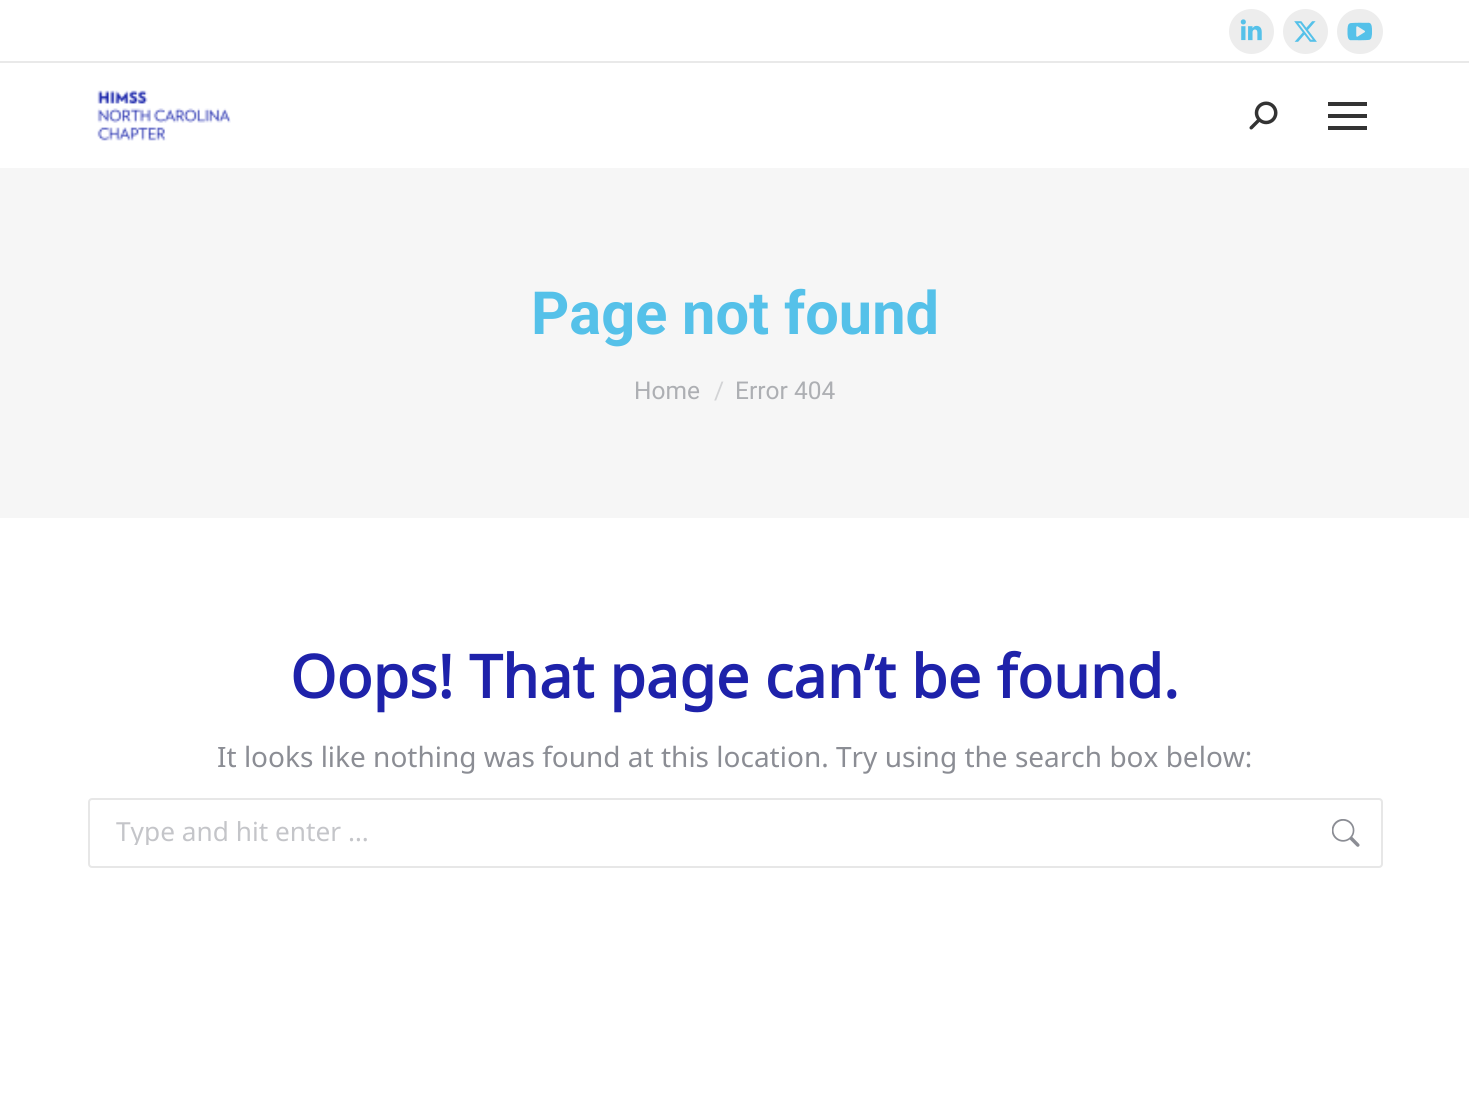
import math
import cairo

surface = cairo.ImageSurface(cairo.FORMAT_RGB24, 1469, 1100)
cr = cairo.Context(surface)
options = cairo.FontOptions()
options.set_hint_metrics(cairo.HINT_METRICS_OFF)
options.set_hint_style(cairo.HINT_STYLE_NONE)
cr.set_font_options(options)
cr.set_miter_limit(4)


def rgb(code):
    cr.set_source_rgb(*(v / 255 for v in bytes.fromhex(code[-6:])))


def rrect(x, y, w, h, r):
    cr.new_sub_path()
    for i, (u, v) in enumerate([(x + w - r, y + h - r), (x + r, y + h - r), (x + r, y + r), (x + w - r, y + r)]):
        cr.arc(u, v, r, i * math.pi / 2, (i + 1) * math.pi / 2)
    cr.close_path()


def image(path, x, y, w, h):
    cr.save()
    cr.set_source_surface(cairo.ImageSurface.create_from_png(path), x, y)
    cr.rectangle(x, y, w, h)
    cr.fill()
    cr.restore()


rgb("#ffffff")
cr.paint()
rgb("#ededed")
cr.arc(1251.5, 31.5, 22.5, 0, 2 * math.pi)
cr.fill()
image("img/1.png", 1240, 19, 22, 22)
cr.arc(1305.5, 31.5, 22.5, 0, 2 * math.pi)
cr.fill()
image("img/2.png", 1294, 21, 23, 21)
rrect(1337, 9, 46, 45, 22.5)
cr.fill()
image("img/3.png", 1347, 22, 25, 19)
rgb("#e9e9e9")
cr.rectangle(0, 61, 1469, 2)
cr.fill()
image("img/4.png", 97, 90, 134, 51)
image("img/5.png", 1249, 101, 29, 29)
for x, y, w, h, color in [
    (1328, 102, 39, 4, "#333333"),
    (1328, 114, 39, 4, "#333333"),
    (1328, 126, 39, 4, "#333333"),
    (0, 168, 1469, 350, "#f6f6f6"),
]:
    rgb(color)
    cr.rectangle(x, y, w, h)
    cr.fill()
rrect(89, 799, 1293, 68, 3)
rgb("#e7e7e7")
cr.stroke()
image("img/6.png", 1332, 819, 28, 28)
cr.select_font_face("Roboto", cairo.FONT_SLANT_NORMAL, cairo.FONT_WEIGHT_BOLD)
cr.set_font_size(59.5)
rgb("#55c1e9")
cr.move_to(531, 334)
cr.show_text("Page not found")
cr.select_font_face("Roboto")
cr.set_font_size(24.5)
rgb("#adafb3")
cr.move_to(634, 399)
cr.show_text("Home")
rgb("#d2d3d5")
cr.move_to(714, 399)
cr.show_text("/")
rgb("#adafb3")
cr.move_to(735, 399)
cr.show_text("Error 404")
cr.select_font_face("Noto Sans Old Hungarian", cairo.FONT_SLANT_NORMAL, cairo.FONT_WEIGHT_BOLD)
cr.set_font_size(59.5)
rgb("#1e22aa")
cr.move_to(290, 698)
cr.show_text("Oops! That page can’t be found.")
cr.select_font_face("Noto Sans Old Hungarian")
cr.set_font_size(28)
rgb("#8b8d94")
cr.move_to(217, 767)
cr.show_text("It looks like nothing was found at this location. Try using the search box below:")
cr.save()
cr.rectangle(116, 817, 1212, 28)
cr.clip()
cr.set_font_size(26.25)
rgb("#c4c5c9")
cr.move_to(116, 841)
cr.show_text("Type and hit enter …")
cr.restore()
surface.write_to_png("page.png")
